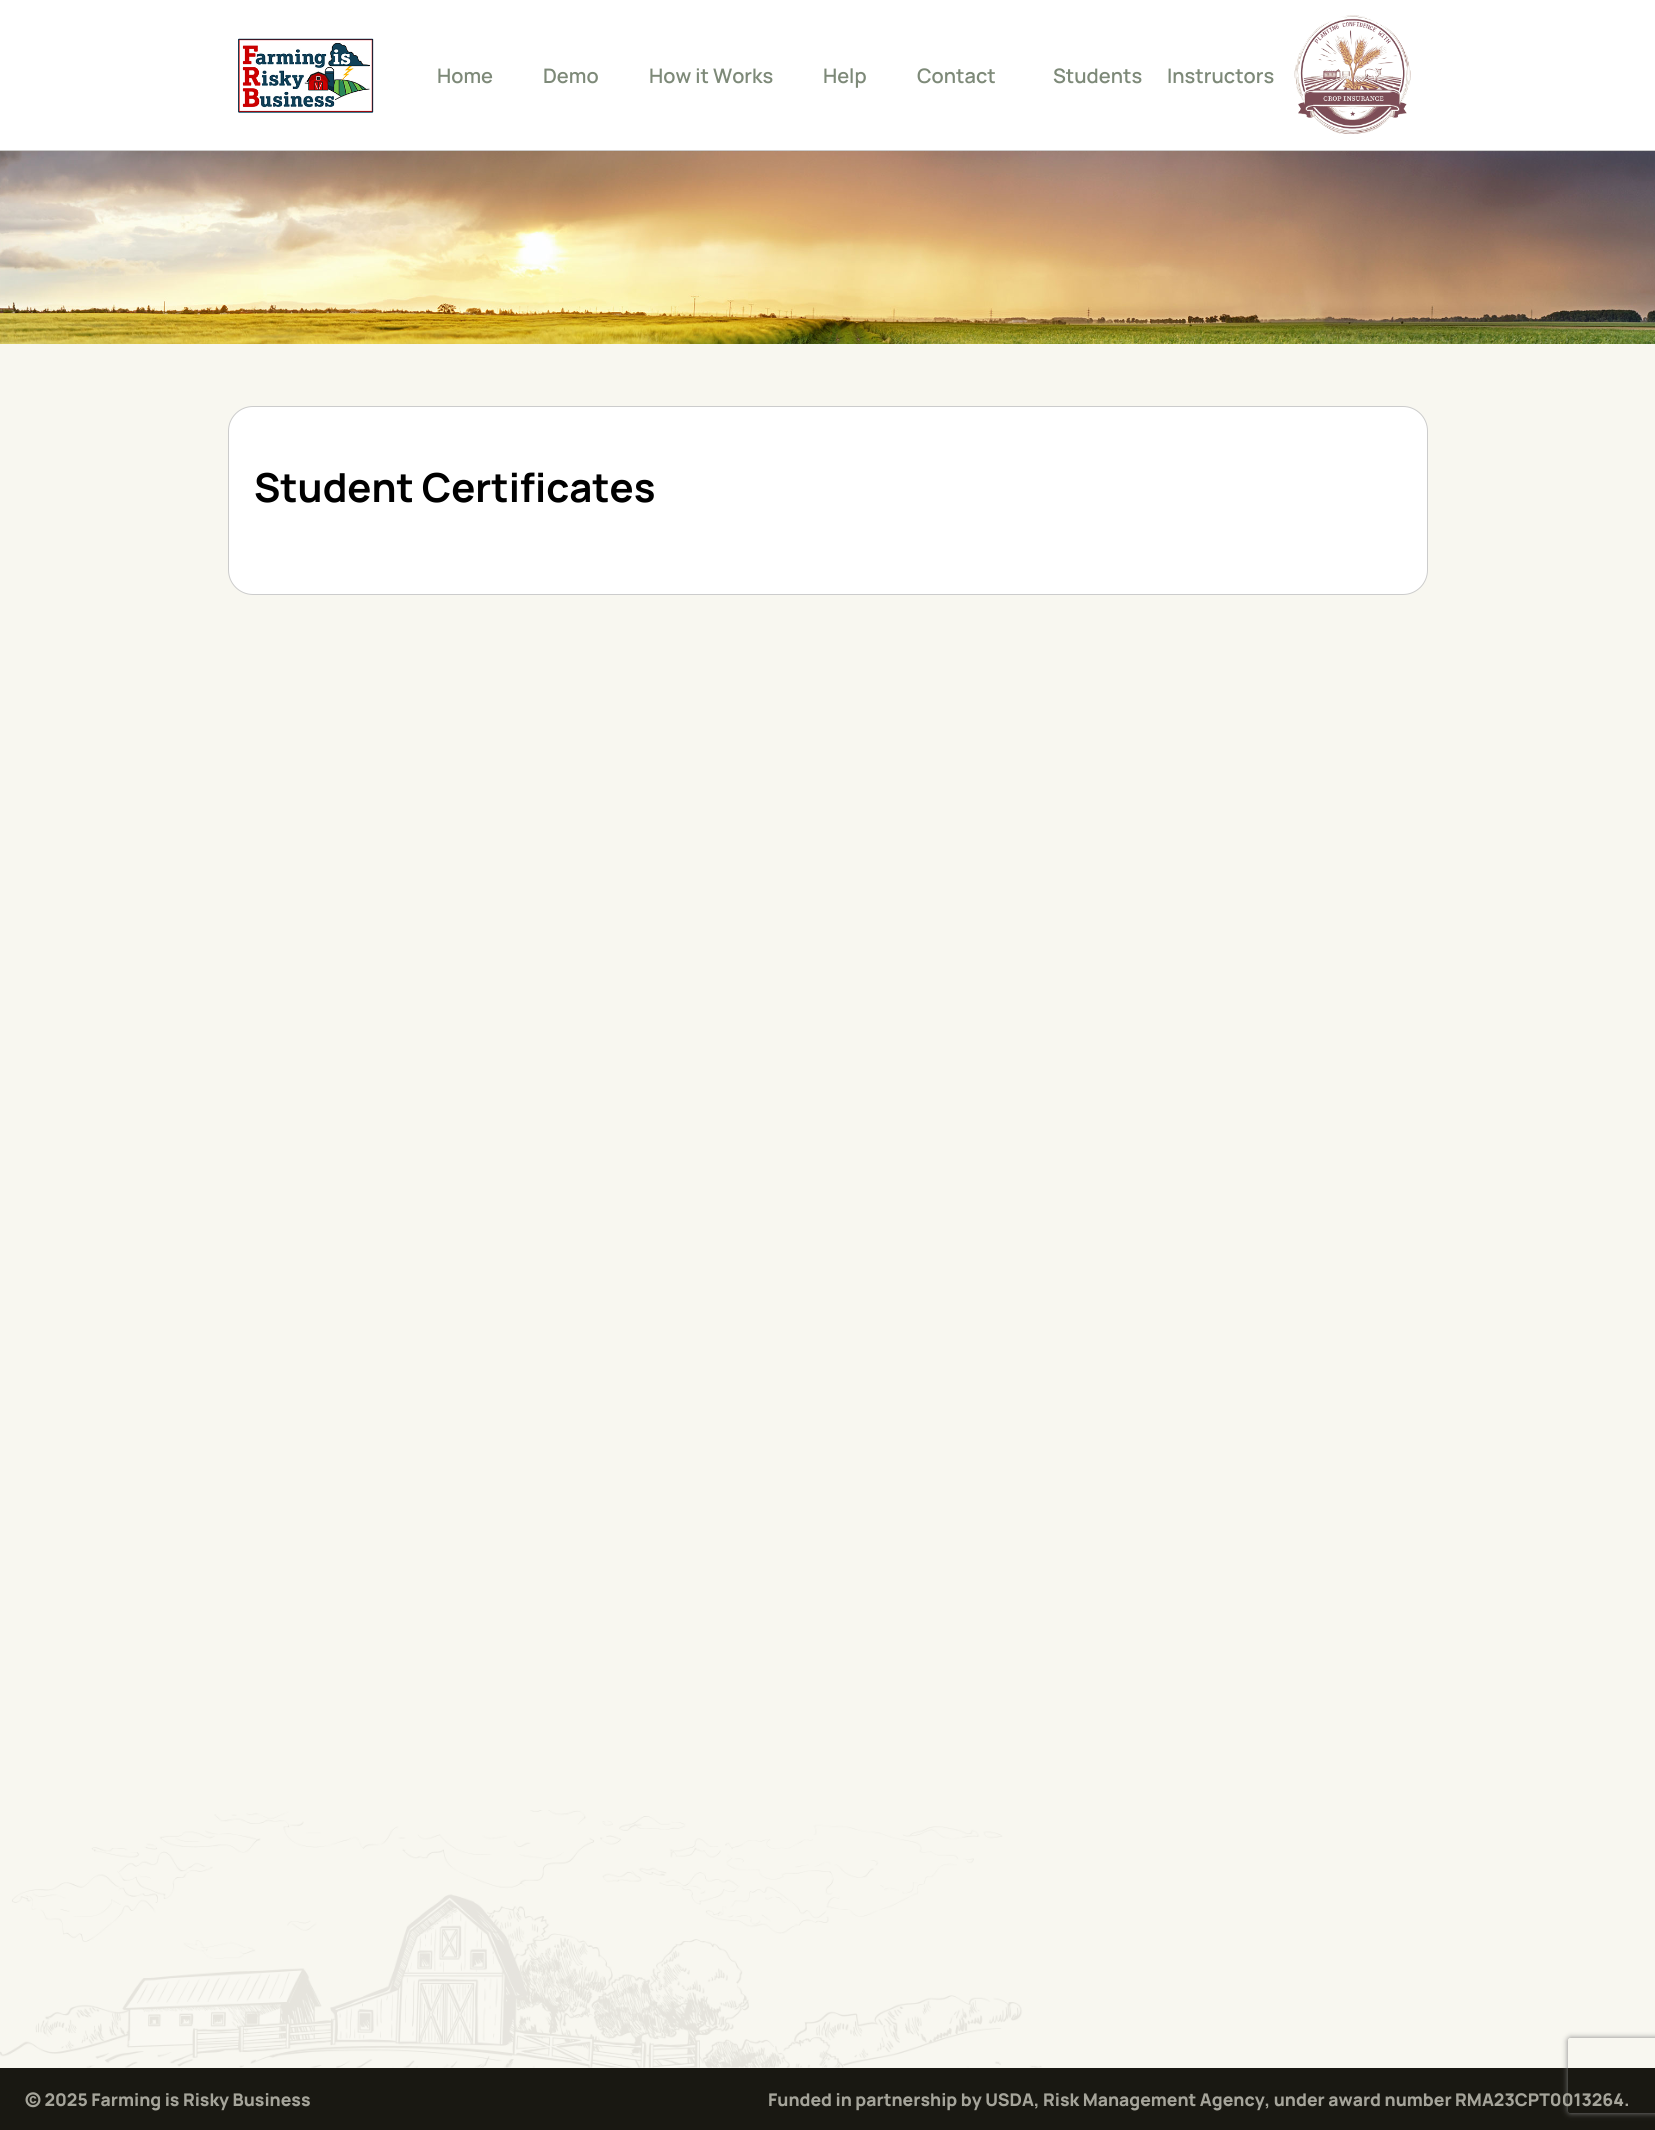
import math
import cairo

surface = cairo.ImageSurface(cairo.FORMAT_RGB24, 1655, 2130)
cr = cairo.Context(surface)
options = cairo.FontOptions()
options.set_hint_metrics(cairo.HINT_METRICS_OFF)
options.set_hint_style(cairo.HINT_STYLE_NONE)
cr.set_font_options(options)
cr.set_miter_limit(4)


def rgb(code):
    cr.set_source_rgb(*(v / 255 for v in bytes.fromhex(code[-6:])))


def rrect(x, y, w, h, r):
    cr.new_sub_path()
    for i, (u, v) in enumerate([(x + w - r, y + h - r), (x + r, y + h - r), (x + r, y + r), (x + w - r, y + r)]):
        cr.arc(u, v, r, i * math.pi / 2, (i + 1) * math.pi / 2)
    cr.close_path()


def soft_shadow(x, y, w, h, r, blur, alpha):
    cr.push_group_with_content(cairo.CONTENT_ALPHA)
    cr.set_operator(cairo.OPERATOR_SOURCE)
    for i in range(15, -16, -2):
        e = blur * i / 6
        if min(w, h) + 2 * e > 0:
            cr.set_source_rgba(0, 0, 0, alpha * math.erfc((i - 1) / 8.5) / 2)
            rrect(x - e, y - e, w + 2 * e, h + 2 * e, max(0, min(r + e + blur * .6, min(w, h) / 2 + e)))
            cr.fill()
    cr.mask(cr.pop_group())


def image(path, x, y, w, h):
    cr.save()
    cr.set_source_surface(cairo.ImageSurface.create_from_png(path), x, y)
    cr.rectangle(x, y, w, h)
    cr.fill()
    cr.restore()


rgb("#ffffff")
cr.paint()
image("img/1.png", 238, 38, 136, 75)
image("img/2.png", 1294, 15, 117, 119)
image("img/3.png", 0, 151, 1655, 193)
rgb("#cccccc")
cr.rectangle(0, 150, 1655, 1)
cr.fill()
rgb("#f8f7f0")
cr.rectangle(0, 344, 1655, 1724)
cr.fill()
image("img/4.png", 0, 1810, 1042, 258)
rgb("#ffffff")
rrect(228.5, 406.5, 1199, 188, 24.5)
cr.fill_preserve()
rgb("#cccccc")
cr.set_line_width(1)
cr.stroke()
rgb("#191812")
cr.rectangle(0, 2068, 1655, 62)
cr.fill()
cr.save()
cr.set_fill_rule(cairo.FILL_RULE_EVEN_ODD)
cr.new_path()
cr.move_to(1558, 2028)
cr.line_to(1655, 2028)
cr.line_to(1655, 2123)
cr.line_to(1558, 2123)
cr.close_path()
cr.move_to(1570.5, 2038)
cr.line_to(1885.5, 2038)
cr.curve_to(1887, 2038, 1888, 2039, 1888, 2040.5)
cr.line_to(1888, 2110.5)
cr.curve_to(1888, 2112, 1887, 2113, 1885.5, 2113)
cr.line_to(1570.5, 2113)
cr.curve_to(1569, 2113, 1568, 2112, 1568, 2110.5)
cr.line_to(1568, 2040.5)
cr.curve_to(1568, 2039, 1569, 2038, 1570.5, 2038)
cr.close_path()
cr.clip()
rgb("#808080")
soft_shadow(1568, 2038, 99, 75, 2.5, 3, 1)
cr.restore()
cr.select_font_face("Manrope SemiBold")
cr.set_font_size(20)
rgb("#7d8978")
for x, y, s in [
    (437, 83, "Home"),
    (543, 83, "Demo"),
    (649, 83, "How it Works"),
    (823, 83, "Help"),
    (917, 83, "Contact"),
    (1053, 83, "Students"),
    (1167, 83, "Instructors"),
]:
    cr.move_to(x, y)
    cr.show_text(s)
cr.select_font_face("Manrope", cairo.FONT_SLANT_NORMAL, cairo.FONT_WEIGHT_BOLD)
cr.set_font_size(40)
rgb("#000000")
cr.move_to(254, 502)
cr.show_text("Student Certificates")
cr.select_font_face("Manrope ExtraBold")
cr.set_font_size(17.5)
rgb("#a5a49a")
cr.move_to(25, 2106)
cr.show_text("© 2025 Farming is Risky Business")
cr.move_to(768, 2106)
cr.show_text("Funded in partnership by USDA, Risk Management Agency, under award number RMA23CPT0013264.")
surface.write_to_png("page.png")
